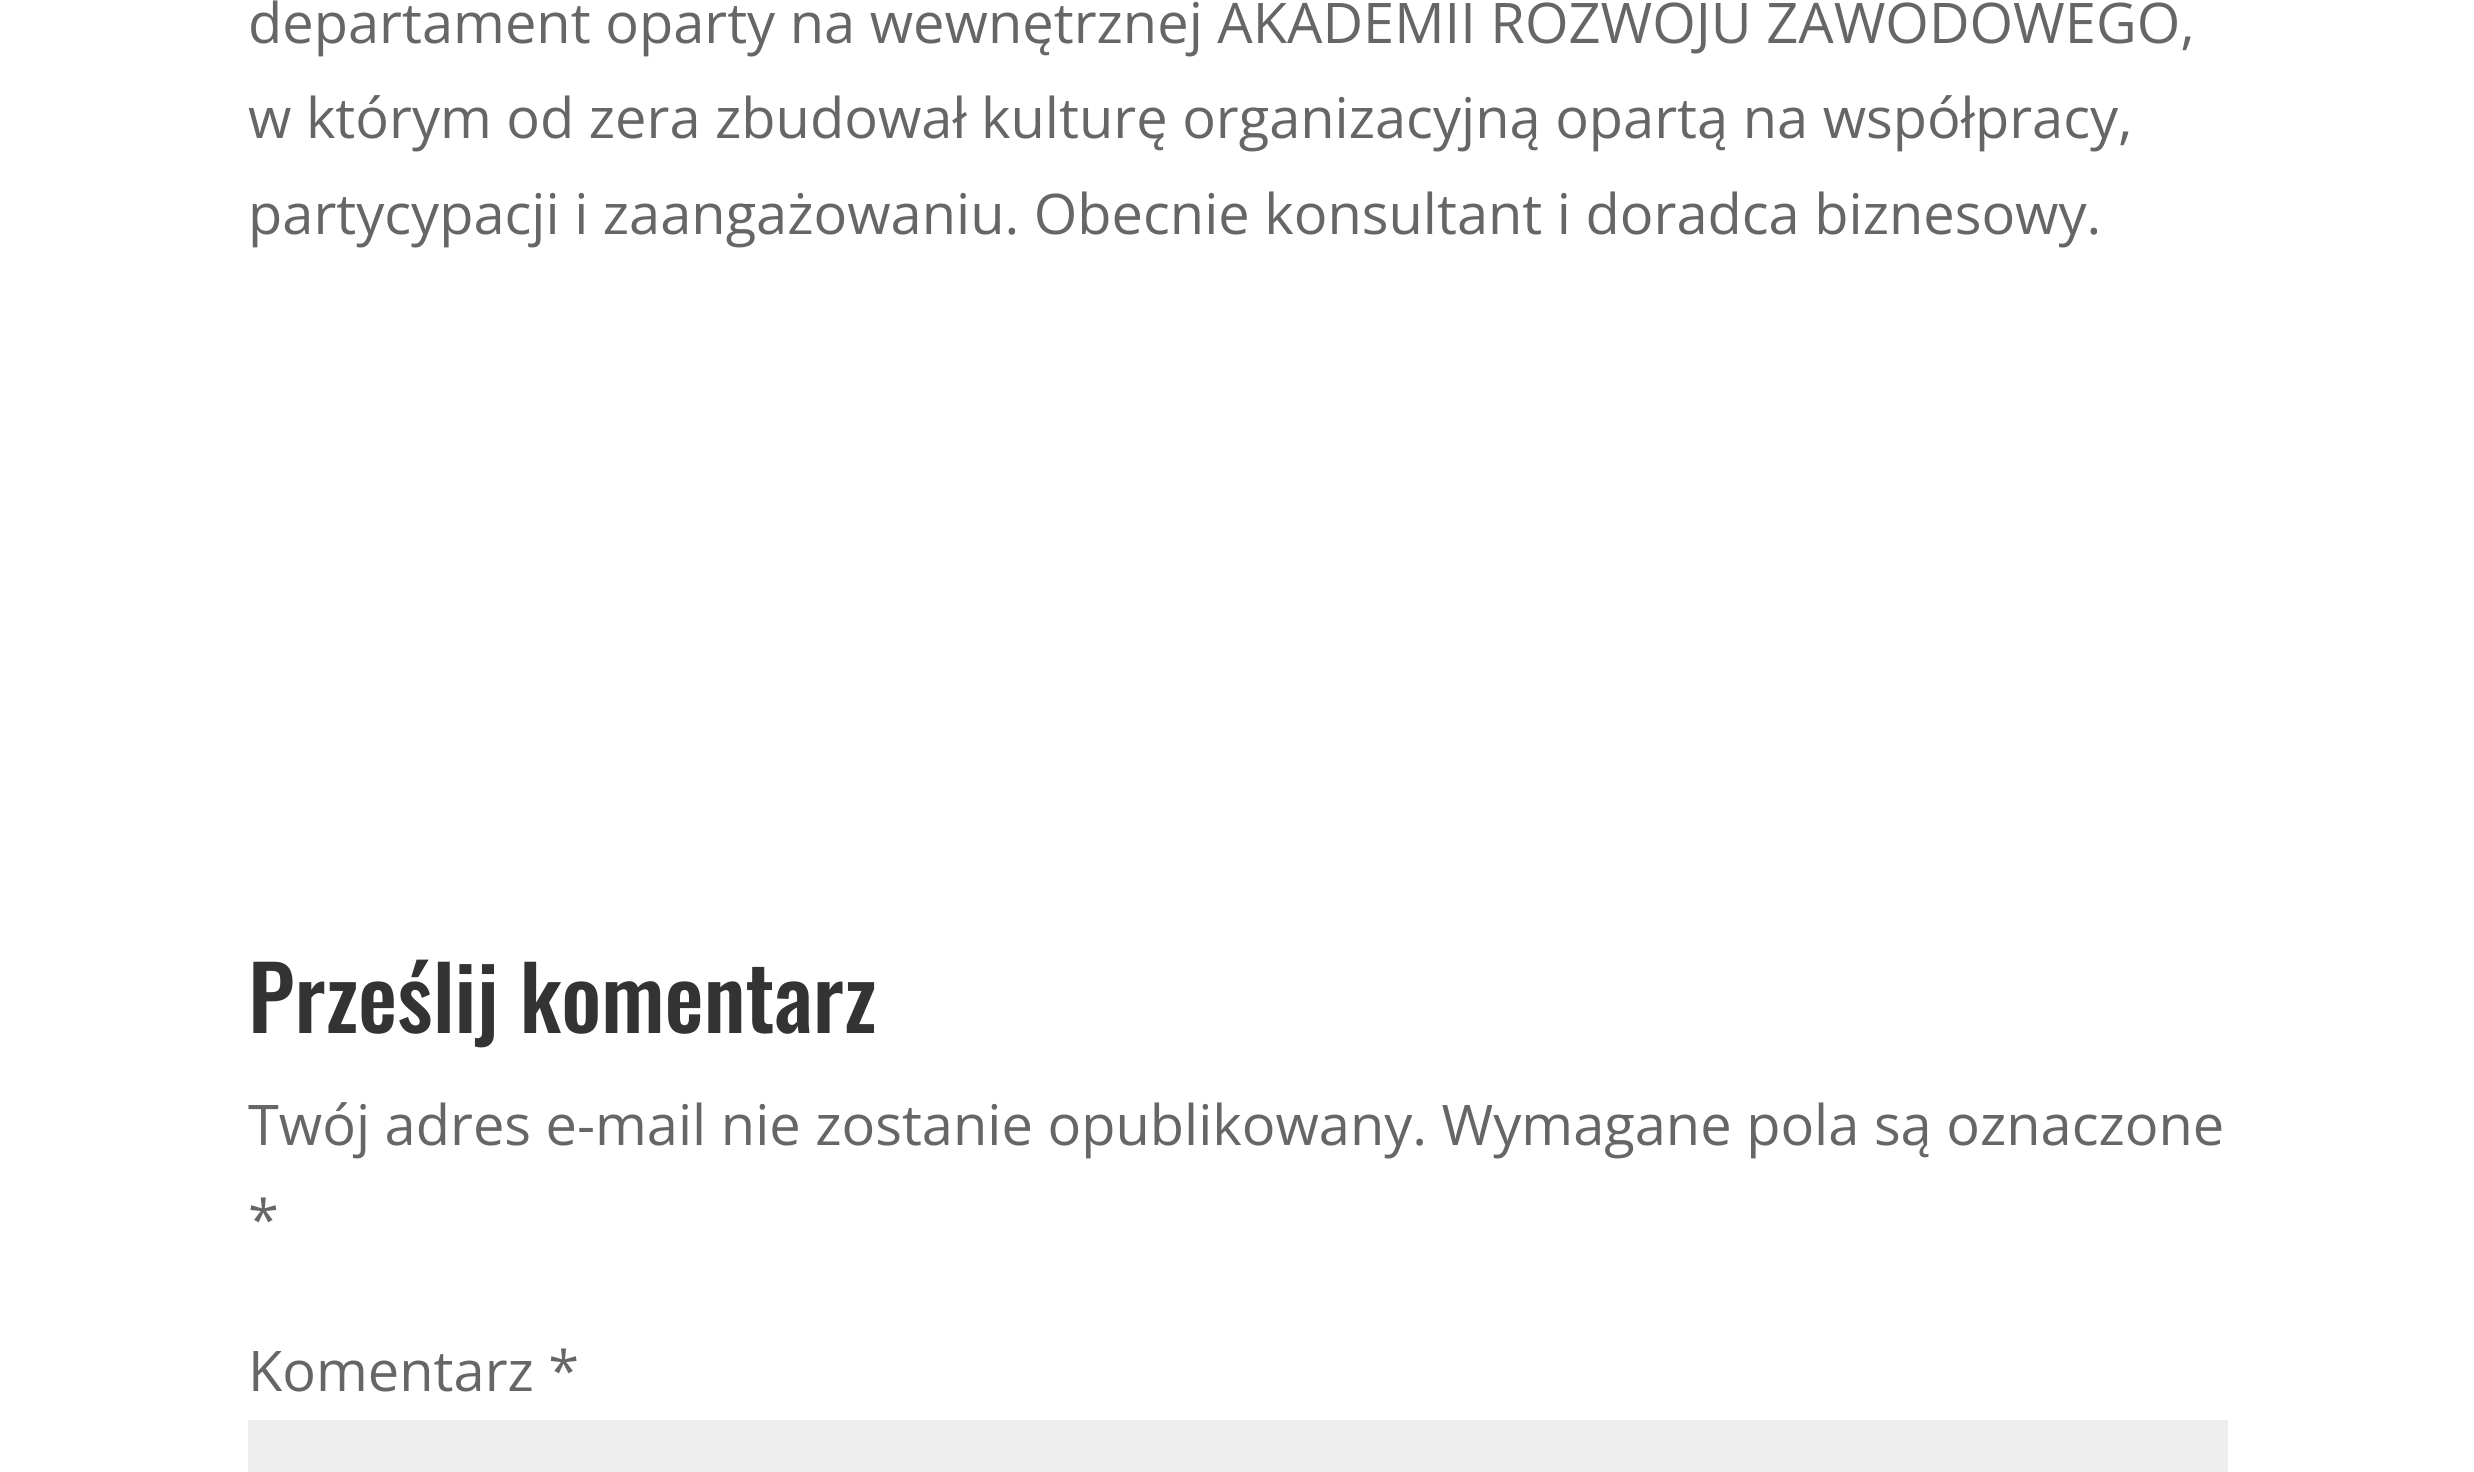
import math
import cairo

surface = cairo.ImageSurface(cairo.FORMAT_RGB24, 2474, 1472)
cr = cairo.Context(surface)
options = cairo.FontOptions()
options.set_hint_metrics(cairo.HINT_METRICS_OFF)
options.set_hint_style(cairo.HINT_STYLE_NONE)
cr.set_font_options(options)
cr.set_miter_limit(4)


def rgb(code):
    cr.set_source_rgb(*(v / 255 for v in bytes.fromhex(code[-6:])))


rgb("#ffffff")
cr.paint()
rgb("#eeeeee")
cr.rectangle(248, 1420, 1980, 52)
cr.fill()
cr.select_font_face("Open Sans")
cr.set_font_size(56)
rgb("#666666")
for x, y, s in [
    (248, 43, "departament oparty na wewnętrznej AKADEMII ROZWOJU ZAWODOWEGO,"),
    (248, 138, "w którym od zera zbudował kulturę organizacyjną opartą na współpracy,"),
    (248, 234, "partycypacji i zaangażowaniu. Obecnie konsultant i doradca biznesowy."),
]:
    cr.move_to(x, y)
    cr.show_text(s)
cr.select_font_face("Oswald Medium")
cr.set_font_size(88)
rgb("#333333")
cr.move_to(248, 1033)
cr.show_text("Prześlij komentarz")
cr.select_font_face("Open Sans")
cr.set_font_size(56)
rgb("#666666")
for x, y, s in [
    (248, 1145, "Twój adres e-mail nie zostanie opublikowany. Wymagane pola są oznaczone"),
    (248, 1240, "*"),
    (248, 1391, "Komentarz *"),
]:
    cr.move_to(x, y)
    cr.show_text(s)
surface.write_to_png("page.png")
